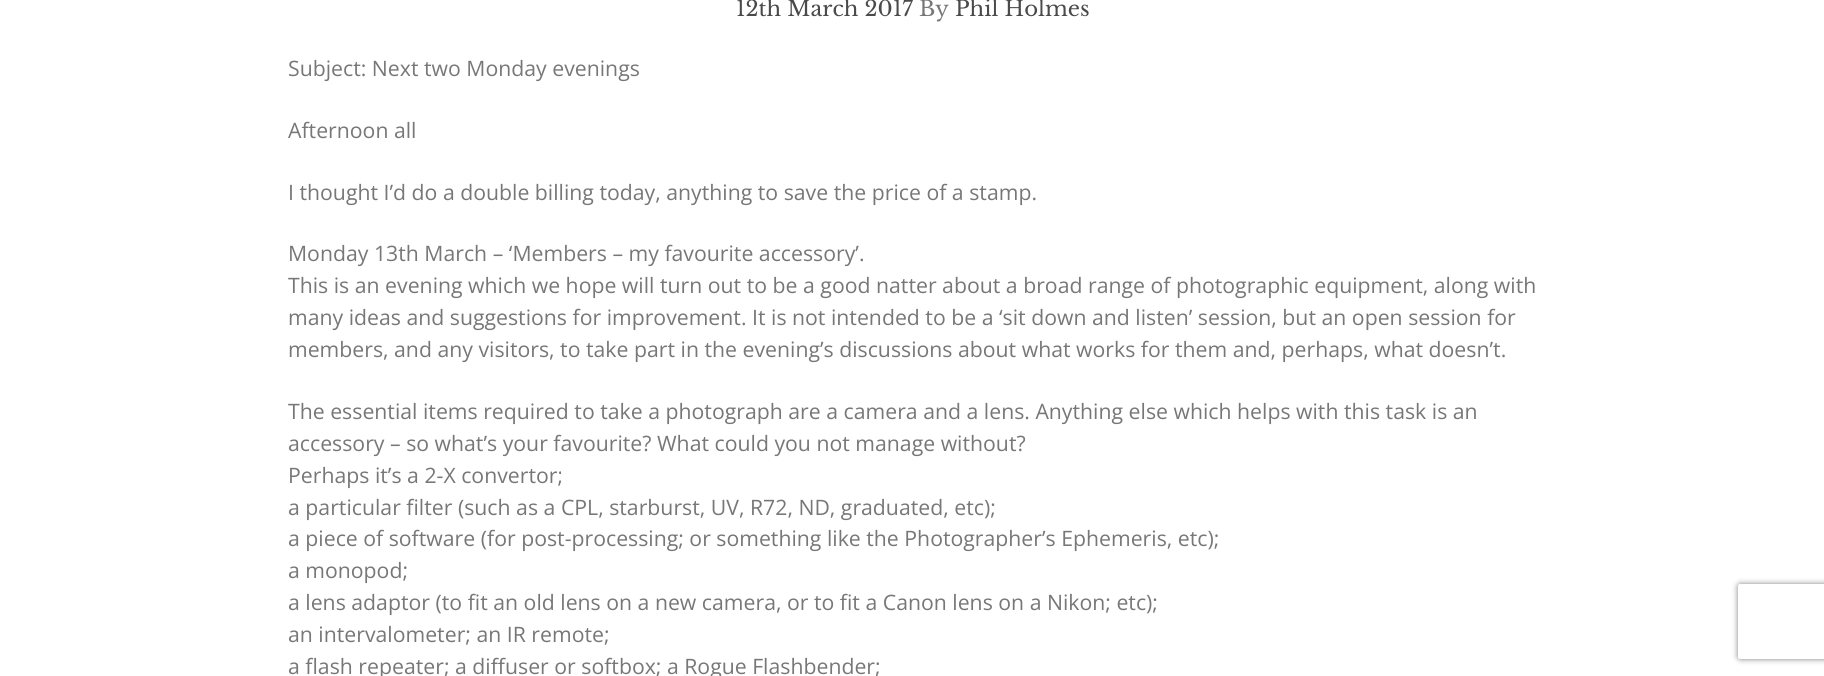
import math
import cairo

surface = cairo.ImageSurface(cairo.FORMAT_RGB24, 1824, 676)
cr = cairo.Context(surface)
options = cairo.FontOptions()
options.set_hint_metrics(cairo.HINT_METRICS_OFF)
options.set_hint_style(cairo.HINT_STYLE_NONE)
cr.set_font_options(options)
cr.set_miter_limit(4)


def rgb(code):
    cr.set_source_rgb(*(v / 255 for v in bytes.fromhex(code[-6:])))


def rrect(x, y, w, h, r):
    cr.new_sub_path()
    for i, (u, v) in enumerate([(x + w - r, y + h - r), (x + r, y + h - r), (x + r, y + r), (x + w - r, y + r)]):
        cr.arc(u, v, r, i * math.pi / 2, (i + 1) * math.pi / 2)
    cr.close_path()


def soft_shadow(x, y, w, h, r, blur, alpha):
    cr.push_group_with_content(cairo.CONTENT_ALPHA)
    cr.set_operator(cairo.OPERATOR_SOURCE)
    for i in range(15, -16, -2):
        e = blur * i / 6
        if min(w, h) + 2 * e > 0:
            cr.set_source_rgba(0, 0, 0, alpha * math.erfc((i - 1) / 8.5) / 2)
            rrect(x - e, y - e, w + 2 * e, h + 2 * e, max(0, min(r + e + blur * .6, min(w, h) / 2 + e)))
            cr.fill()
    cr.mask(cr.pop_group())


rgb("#ffffff")
cr.paint()
cr.save()
cr.set_fill_rule(cairo.FILL_RULE_EVEN_ODD)
cr.new_path()
cr.move_to(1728, 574)
cr.line_to(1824, 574)
cr.line_to(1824, 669)
cr.line_to(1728, 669)
cr.close_path()
cr.move_to(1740.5, 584)
cr.line_to(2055.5, 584)
cr.curve_to(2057, 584, 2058, 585, 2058, 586.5)
cr.line_to(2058, 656.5)
cr.curve_to(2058, 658, 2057, 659, 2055.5, 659)
cr.line_to(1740.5, 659)
cr.curve_to(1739, 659, 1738, 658, 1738, 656.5)
cr.line_to(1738, 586.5)
cr.curve_to(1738, 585, 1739, 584, 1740.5, 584)
cr.close_path()
cr.clip()
rgb("#808080")
soft_shadow(1738, 584, 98, 75, 2.5, 3, 1)
cr.restore()
cr.select_font_face("Libre Baskerville")
cr.set_font_size(21.25)
rgb("#4a4a4a")
cr.move_to(736, 16)
cr.show_text("12th March 2017")
rgb("#777777")
cr.move_to(919, 16)
cr.show_text("By")
rgb("#4a4a4a")
cr.move_to(955, 16)
cr.show_text("Phil Holmes")
cr.select_font_face("Open Sans")
rgb("#777777")
for x, y, s in [
    (288, 76, "Subject: Next two Monday evenings"),
    (288, 138, "Afternoon all"),
    (288, 200, "I thought I’d do a double billing today, anything to save the price of a stamp."),
    (288, 261, "Monday 13th March – ‘Members – my favourite accessory’."),
    (288, 293, "This is an evening which we hope will turn out to be a good natter about a broad range of photographic equipment, along with"),
    (288, 325, "many ideas and suggestions for improvement. It is not intended to be a ‘sit down and listen’ session, but an open session for"),
    (288, 357, "members, and any visitors, to take part in the evening’s discussions about what works for them and, perhaps, what doesn’t."),
    (288, 419, "The essential items required to take a photograph are a camera and a lens. Anything else which helps with this task is an"),
    (288, 451, "accessory – so what’s your favourite? What could you not manage without?"),
    (288, 483, "Perhaps it’s a 2-X convertor;"),
    (288, 515, "a particular filter (such as a CPL, starburst, UV, R72, ND, graduated, etc);"),
    (288, 546, "a piece of software (for post-processing; or something like the Photographer’s Ephemeris, etc);"),
    (288, 578, "a monopod;"),
    (288, 610, "a lens adaptor (to fit an old lens on a new camera, or to fit a Canon lens on a Nikon; etc);"),
    (288, 642, "an intervalometer; an IR remote;"),
    (288, 674, "a flash repeater; a diffuser or softbox; a Rogue Flashbender;"),
]:
    cr.move_to(x, y)
    cr.show_text(s)
surface.write_to_png("page.png")
